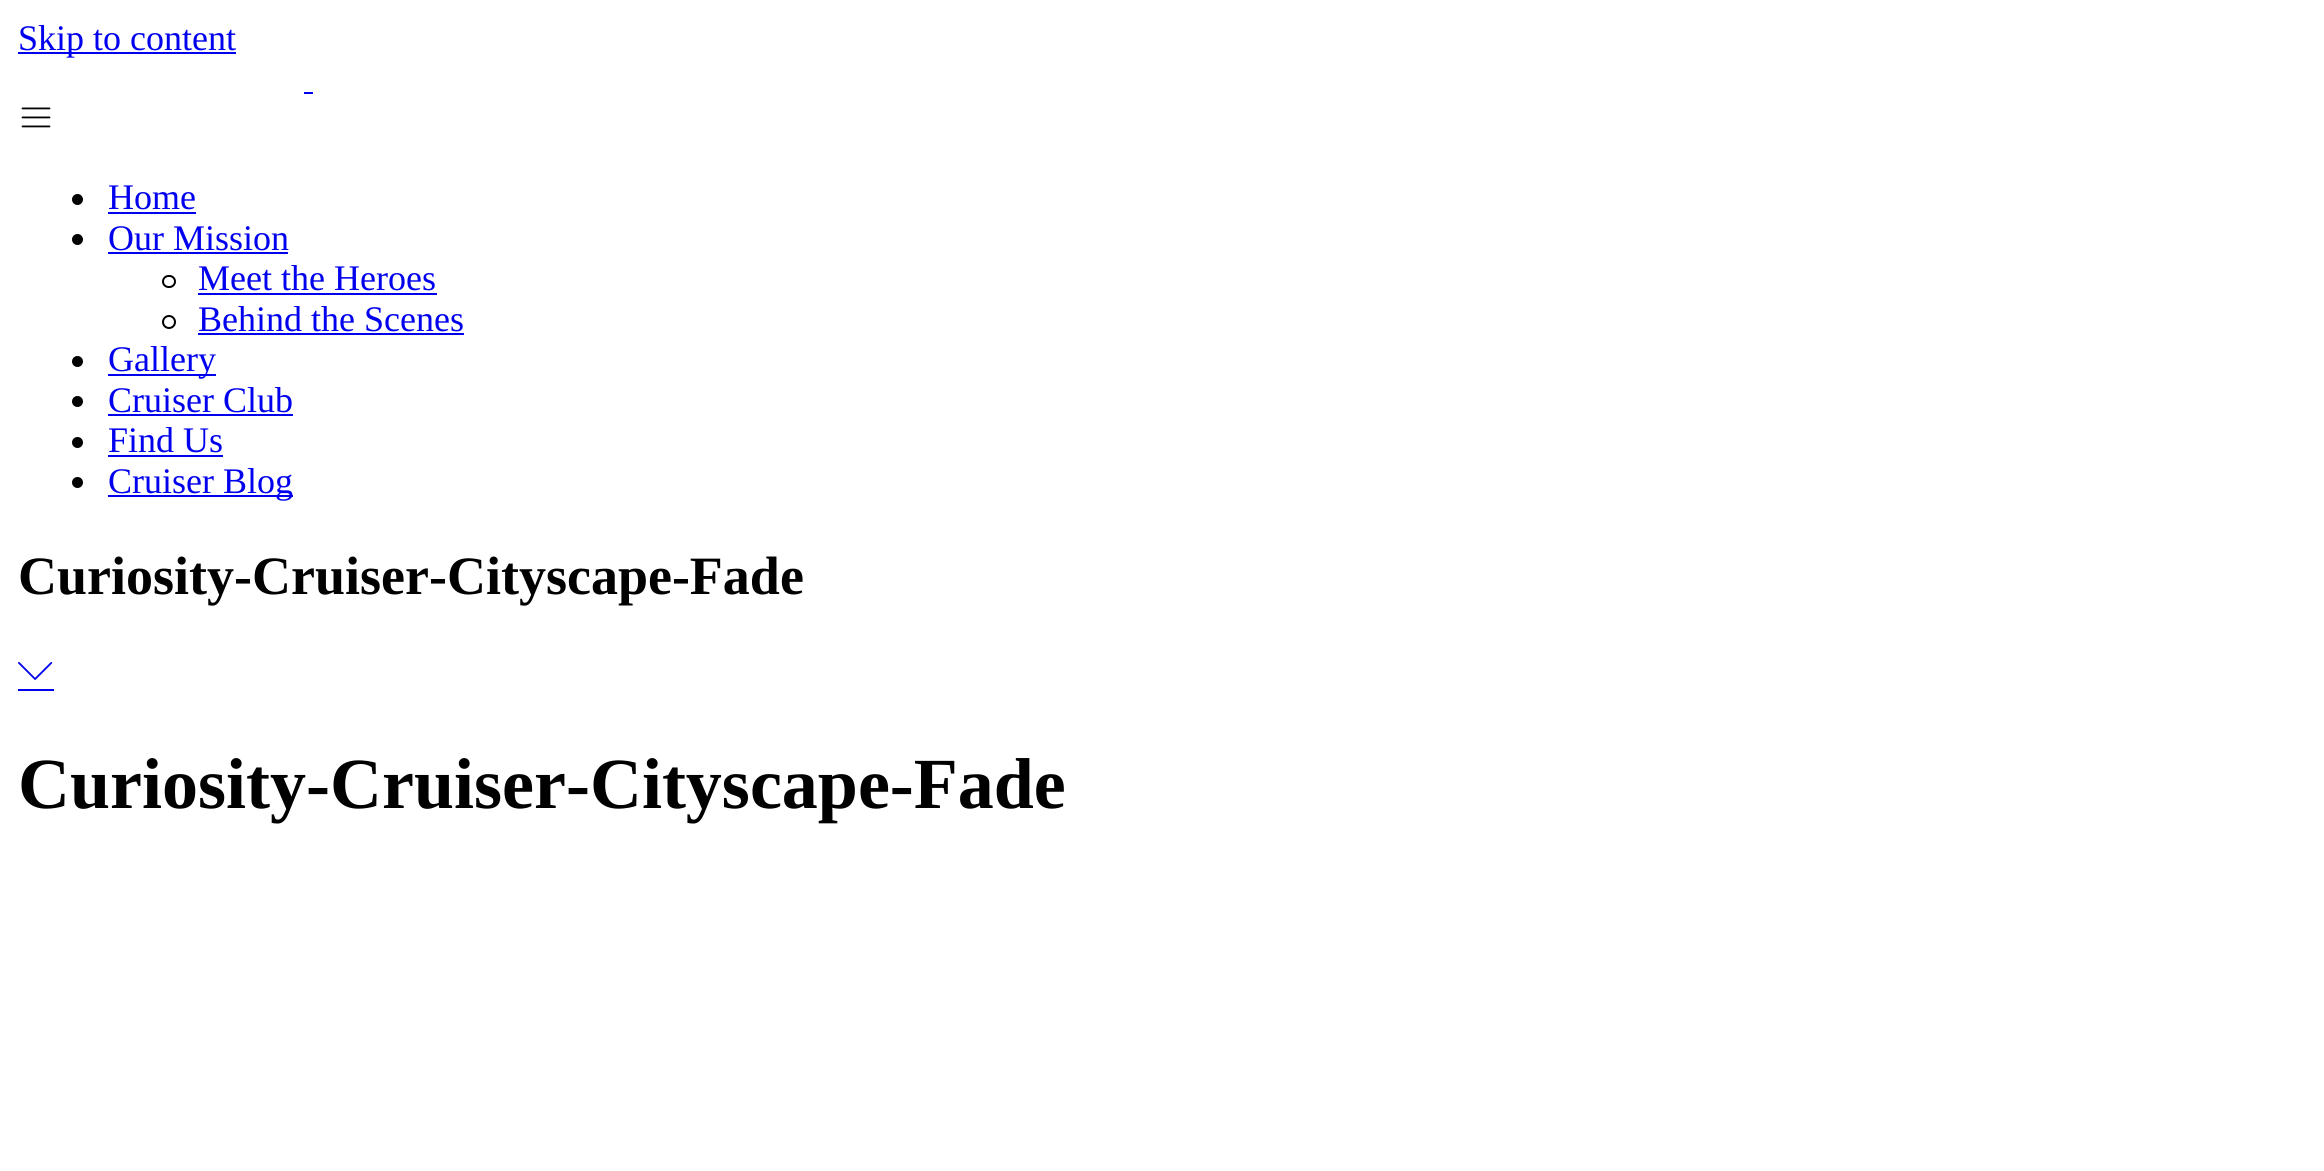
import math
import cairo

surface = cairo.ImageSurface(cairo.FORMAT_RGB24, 2324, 1171)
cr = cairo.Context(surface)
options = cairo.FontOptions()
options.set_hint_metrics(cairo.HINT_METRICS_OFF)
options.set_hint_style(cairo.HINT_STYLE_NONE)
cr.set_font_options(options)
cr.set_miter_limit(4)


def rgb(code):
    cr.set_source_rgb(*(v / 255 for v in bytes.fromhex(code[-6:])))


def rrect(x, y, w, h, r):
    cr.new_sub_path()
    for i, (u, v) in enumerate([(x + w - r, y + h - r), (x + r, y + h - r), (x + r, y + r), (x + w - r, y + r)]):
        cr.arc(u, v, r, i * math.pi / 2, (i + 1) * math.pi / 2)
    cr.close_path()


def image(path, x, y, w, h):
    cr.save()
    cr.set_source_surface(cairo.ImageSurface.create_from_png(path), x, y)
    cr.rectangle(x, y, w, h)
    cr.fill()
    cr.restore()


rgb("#ffffff")
cr.paint()
rgb("#0000ee")
cr.rectangle(18, 52, 218, 2)
cr.fill()
cr.rectangle(304, 92, 9, 2)
cr.fill()
image("img/1.png", 21, 107, 30, 21)
rgb("#000000")
cr.arc(77.5, 199.5, 5.5, 0, 2 * math.pi)
cr.fill()
rgb("#0000ee")
cr.rectangle(108, 212, 88, 2)
cr.fill()
rgb("#000000")
cr.arc(77.5, 239.5, 5.5, 0, 2 * math.pi)
cr.fill()
rgb("#0000ee")
cr.rectangle(108, 252, 180, 2)
cr.fill()
rrect(163, 276, 12, 11, 5.5)
rgb("#000000")
cr.stroke()
rgb("#0000ee")
cr.rectangle(198, 293, 239, 2)
cr.fill()
cr.arc(169, 322, 6, 0, 2 * math.pi)
rgb("#000000")
cr.stroke()
rgb("#0000ee")
cr.rectangle(198, 333, 266, 2)
cr.fill()
rgb("#000000")
cr.arc(77.5, 361.5, 5.5, 0, 2 * math.pi)
cr.fill()
rgb("#0000ee")
cr.rectangle(108, 374, 108, 2)
cr.fill()
rgb("#000000")
cr.arc(77.5, 401.5, 5.5, 0, 2 * math.pi)
cr.fill()
rgb("#0000ee")
cr.rectangle(108, 414, 185, 2)
cr.fill()
rgb("#000000")
cr.arc(77.5, 442.5, 5.5, 0, 2 * math.pi)
cr.fill()
rgb("#0000ee")
cr.rectangle(108, 455, 115, 2)
cr.fill()
rgb("#000000")
cr.arc(77.5, 482.5, 5.5, 0, 2 * math.pi)
cr.fill()
rgb("#0000ee")
cr.rectangle(108, 495, 185, 2)
cr.fill()
image("img/2.png", 18, 662, 35, 18)
cr.rectangle(18, 689, 36, 2)
cr.fill()
cr.select_font_face("Liberation Serif")
cr.set_font_size(36)
for x, y, s in [
    (18, 50, "Skip to content"),
    (108, 209, "Home"),
    (108, 250, "Our Mission"),
    (198, 290, "Meet the Heroes"),
    (198, 331, "Behind the Scenes"),
    (108, 371, "Gallery"),
    (108, 412, "Cruiser Club"),
    (108, 452, "Find Us"),
    (108, 493, "Cruiser Blog"),
]:
    cr.move_to(x, y)
    cr.show_text(s)
cr.select_font_face("Liberation Serif", cairo.FONT_SLANT_NORMAL, cairo.FONT_WEIGHT_BOLD)
cr.set_font_size(54)
rgb("#000000")
cr.move_to(18, 594)
cr.show_text("Curiosity-Cruiser-Cityscape-Fade")
cr.set_font_size(72)
cr.move_to(18, 808)
cr.show_text("Curiosity-Cruiser-Cityscape-Fade")
surface.write_to_png("page.png")
